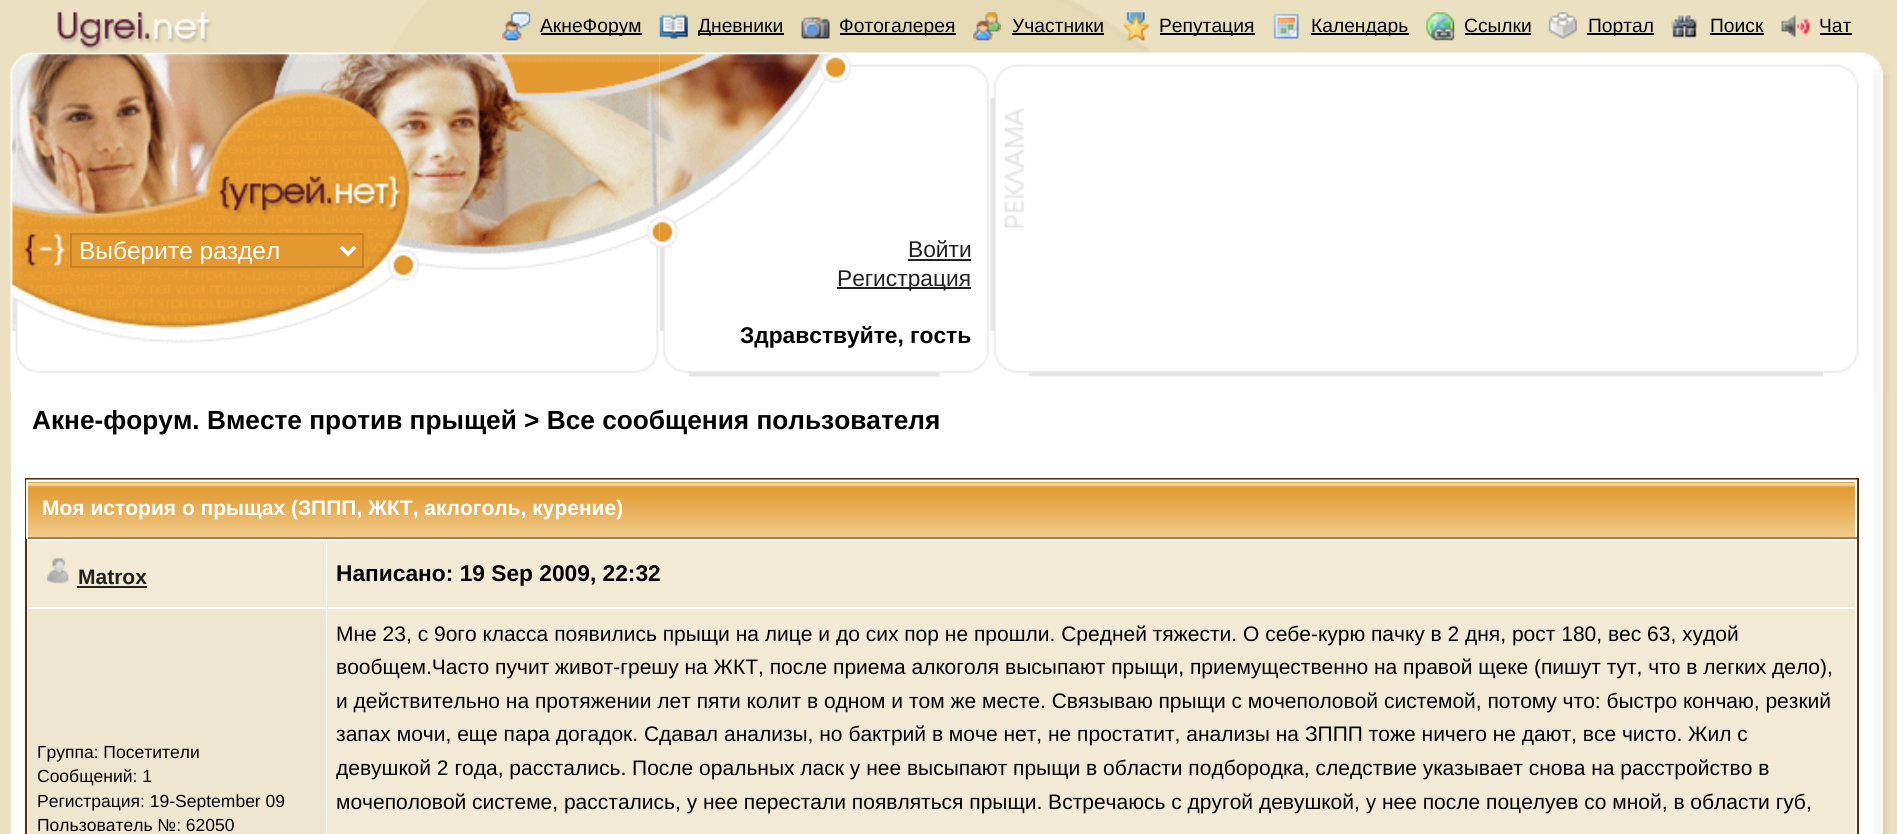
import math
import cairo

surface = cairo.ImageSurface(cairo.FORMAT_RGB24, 1897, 834)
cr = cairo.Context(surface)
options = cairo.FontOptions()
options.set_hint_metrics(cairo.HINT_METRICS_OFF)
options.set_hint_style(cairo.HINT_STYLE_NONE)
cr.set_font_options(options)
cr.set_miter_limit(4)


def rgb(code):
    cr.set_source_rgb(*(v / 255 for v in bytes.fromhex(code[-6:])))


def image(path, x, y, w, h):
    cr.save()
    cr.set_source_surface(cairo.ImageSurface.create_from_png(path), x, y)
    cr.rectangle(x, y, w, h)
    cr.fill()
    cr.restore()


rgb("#ebe0c0")
cr.paint()
image("img/2.png", 390, 0, 762, 53)
rgb("#ffffff")
cr.rectangle(11, 53, 1862, 781)
cr.fill()
image("img/13.png", 10, 52, 650, 340)
image("img/1.png", 26, 11, 212, 42)
image("img/3.png", 502, 12, 29, 29)
rgb("#000000")
cr.rectangle(541, 33, 101, 2)
cr.fill()
image("img/4.png", 659, 14, 29, 25)
cr.rectangle(698, 33, 86, 2)
cr.fill()
image("img/5.png", 801, 17, 29, 22)
cr.rectangle(840, 33, 116, 2)
cr.fill()
image("img/6.png", 973, 12, 28, 29)
cr.rectangle(1012, 33, 92, 2)
cr.fill()
image("img/7.png", 1123, 12, 27, 29)
cr.rectangle(1160, 33, 95, 2)
cr.fill()
image("img/8.png", 1273, 13, 26, 26)
cr.rectangle(1311, 33, 98, 2)
cr.fill()
image("img/9.png", 1426, 12, 29, 29)
cr.rectangle(1465, 33, 66, 2)
cr.fill()
image("img/10.png", 1548, 12, 29, 27)
cr.rectangle(1587, 33, 67, 2)
cr.fill()
image("img/11.png", 1671, 15, 27, 23)
cr.rectangle(1710, 33, 54, 2)
cr.fill()
image("img/12.png", 1781, 15, 29, 23)
cr.rectangle(1820, 33, 32, 2)
cr.fill()
rgb("#e3992f")
cr.rectangle(71, 234, 292, 33)
cr.fill_preserve()
rgb("#c48428")
cr.stroke()
cr.new_path()
cr.move_to(341, 247)
cr.line_to(348, 254)
cr.line_to(355, 247)
rgb("#ffffff")
cr.set_line_width(3.5)
cr.stroke()
image("img/14.png", 659, 52, 332, 325)
rgb("#222222")
cr.rectangle(908, 259, 63, 2)
cr.fill()
cr.rectangle(837, 287, 134, 2)
cr.fill()
image("img/15.png", 990, 52, 39, 321)
image("img/16.png", 1029, 52, 795, 325)
image("img/17.png", 1823, 52, 74, 340)
image("img/18.png", 1873, 392, 24, 442)
cr.rectangle(26, 479, 1832, 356)
rgb("#662a06")
cr.set_line_width(2)
cr.stroke()
image("img/19.png", 26, 479, 1831, 58)
for x, y, w, h, color in [
    (26, 480, 1831, 2, "#ffffff"),
    (1855, 480, 2, 59, "#ffffff"),
    (26, 537, 1831, 2, "#b5764b"),
    (26, 480, 2, 59, "#ffffff"),
    (28, 541, 298, 66, "#f2ead4"),
]:
    rgb(color)
    cr.rectangle(x, y, w, h)
    cr.fill()
image("img/20.png", 46, 557, 23, 27)
for x, y, w, h, color in [
    (77, 586, 70, 2, "#222222"),
    (327, 541, 1528, 66, "#f2ead4"),
    (28, 609, 298, 225, "#efe6cf"),
    (327, 609, 1528, 225, "#f2ead4"),
]:
    rgb(color)
    cr.rectangle(x, y, w, h)
    cr.fill()
cr.select_font_face("Liberation Sans")
cr.set_font_size(19.25)
rgb("#000000")
for x, y, s in [
    (540, 32, "АкнеФорум"),
    (698, 32, "Дневники"),
    (839, 32, "Фотогалерея"),
    (1012, 32, "Участники"),
    (1159, 32, "Репутация"),
    (1311, 32, "Календарь"),
    (1464, 32, "Ссылки"),
    (1588, 32, "Портал"),
    (1710, 32, "Поиск"),
    (1819, 32, "Чат"),
]:
    cr.move_to(x, y)
    cr.show_text(s)
cr.set_font_size(24.5)
rgb("#ffffff")
cr.move_to(79, 259)
cr.show_text("Выберите раздел")
cr.set_font_size(22.75)
rgb("#222222")
cr.move_to(908, 257)
cr.show_text("Войти")
cr.move_to(837, 286)
cr.show_text("Регистрация")
cr.select_font_face("Liberation Sans", cairo.FONT_SLANT_NORMAL, cairo.FONT_WEIGHT_BOLD)
rgb("#000000")
cr.move_to(740, 343)
cr.show_text("Здравствуйте, гость")
cr.set_font_size(26.25)
cr.move_to(32, 429)
cr.show_text("Акне-форум. Вместе против прыщей > Все сообщения пользователя")
cr.set_font_size(21)
rgb("#ffffff")
cr.move_to(42, 515)
cr.show_text("Моя история о прыщах (ЗППП, ЖКТ, аклоголь, курение)")
rgb("#222222")
cr.move_to(78, 584)
cr.show_text("Matrox")
cr.set_font_size(22.75)
rgb("#000000")
cr.move_to(336, 581)
cr.show_text("Написано: 19 Sep 2009, 22:32")
cr.select_font_face("Liberation Sans")
cr.set_font_size(17.5)
for x, y, s in [
    (37, 758, "Группа: Посетители"),
    (37, 782, "Сообщений: 1"),
    (37, 807, "Регистрация: 19-September 09"),
    (37, 831, "Пользователь №: 62050"),
]:
    cr.move_to(x, y)
    cr.show_text(s)
cr.set_font_size(21)
for x, y, s in [
    (336, 641, "Мне 23, с 9ого класса появились прыщи на лице и до сих пор не прошли. Средней тяжести. О себе-курю пачку в 2 дня, рост 180, вес 63, худой"),
    (336, 674, "вообщем.Часто пучит живот-грешу на ЖКТ, после приема алкоголя высыпают прыщи, приемущественно на правой щеке (пишут тут, что в легких дело),"),
    (336, 708, "и действительно на протяжении лет пяти колит в одном и том же месте. Связываю прыщи с мочеполовой системой, потому что: быстро кончаю, резкий"),
    (336, 741, "запах мочи, еще пара догадок. Сдавал анализы, но бактрий в моче нет, не простатит, анализы на ЗППП тоже ничего не дают, все чисто. Жил с"),
    (336, 775, "девушкой 2 года, расстались. После оральных ласк у нее высыпают прыщи в области подбородка, следствие указывает снова на расстройство в"),
    (336, 809, "мочеполовой системе, расстались, у нее перестали появляться прыщи. Встречаюсь с другой девушкой, у нее после поцелуев со мной, в области губ,"),
]:
    cr.move_to(x, y)
    cr.show_text(s)
surface.write_to_png("page.png")
